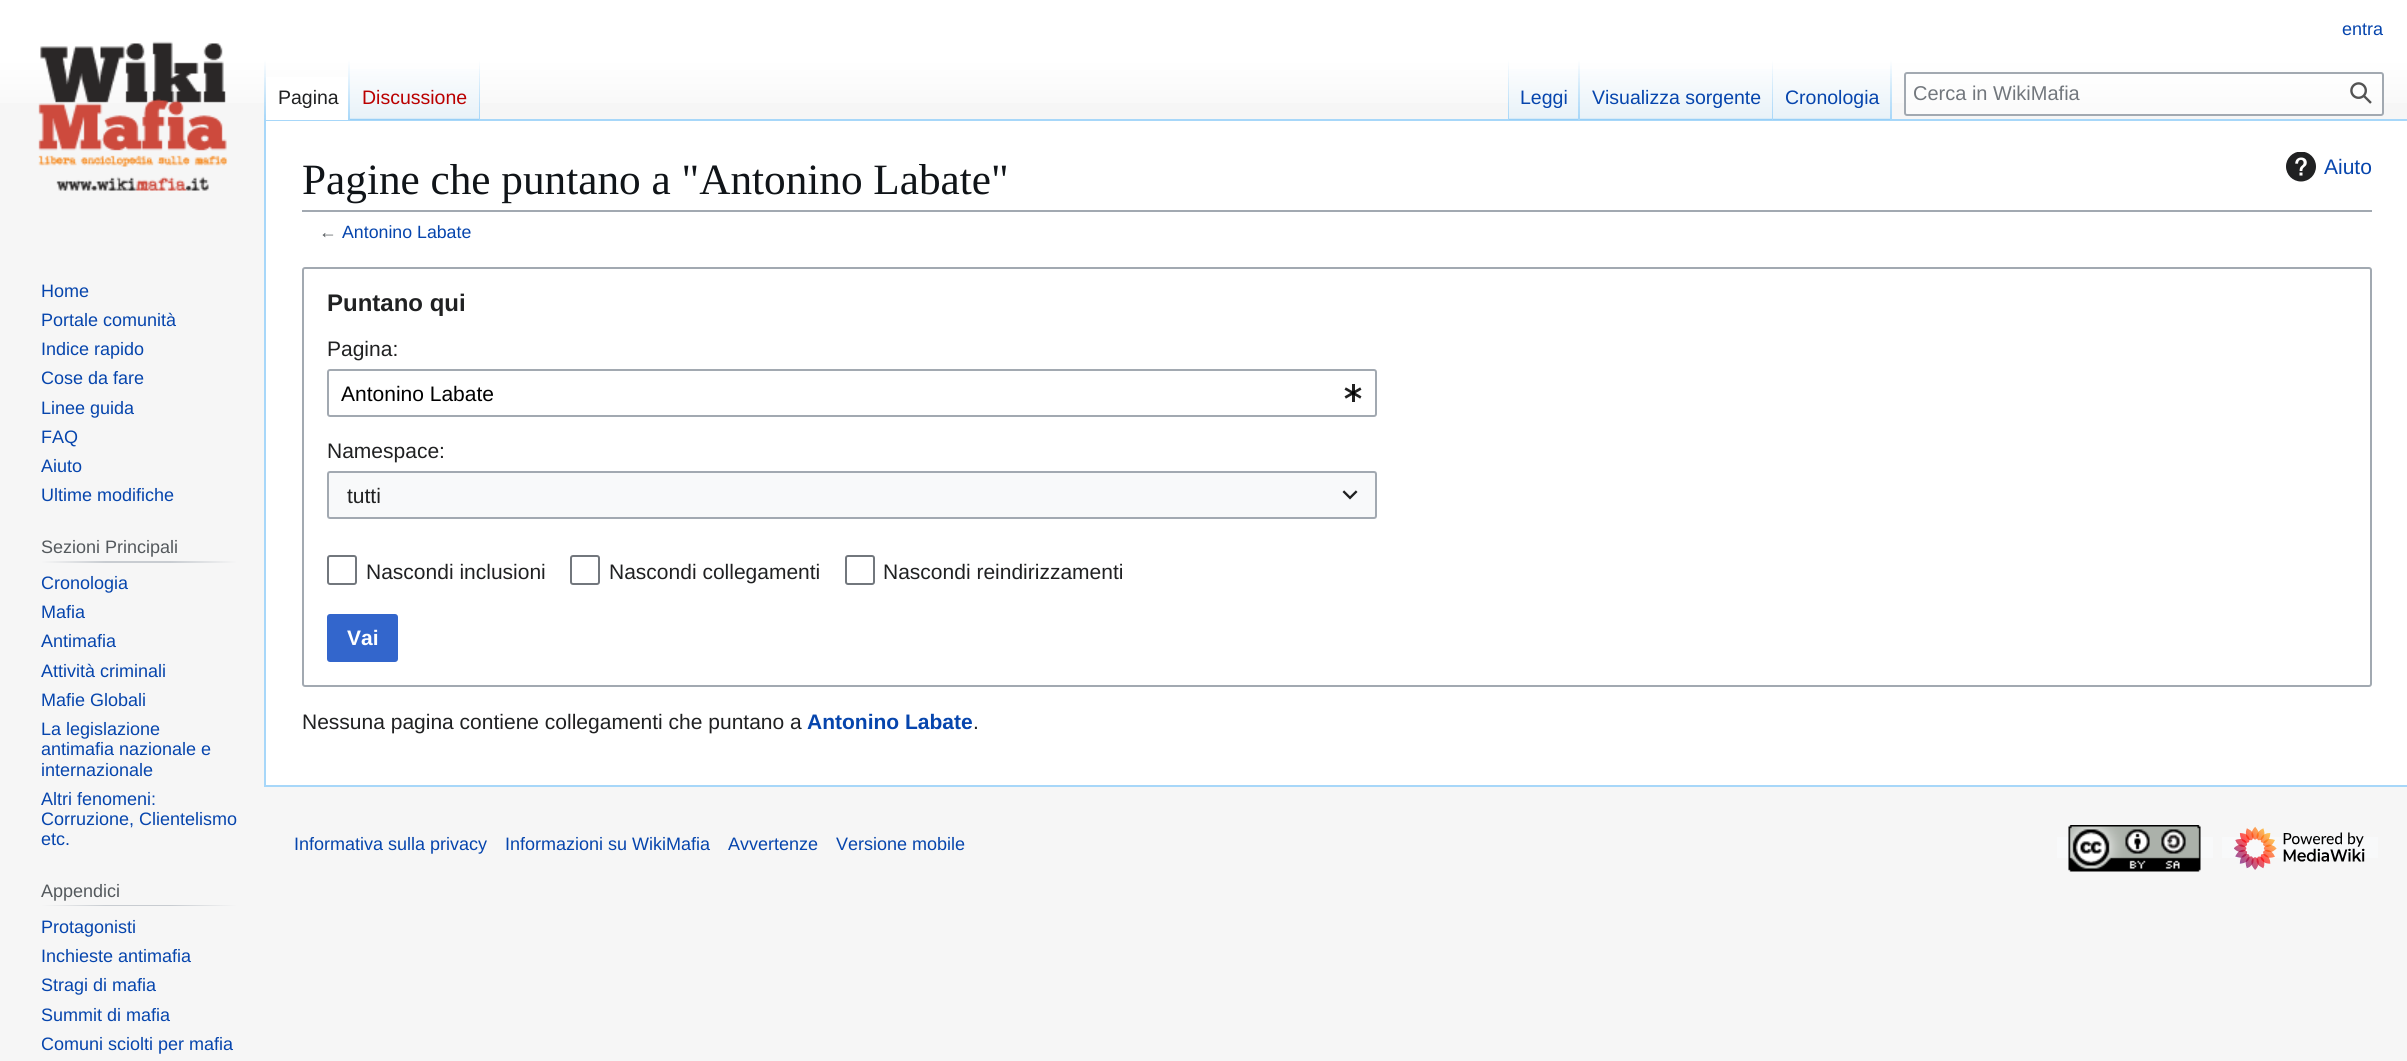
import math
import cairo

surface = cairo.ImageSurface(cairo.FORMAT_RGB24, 2407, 1061)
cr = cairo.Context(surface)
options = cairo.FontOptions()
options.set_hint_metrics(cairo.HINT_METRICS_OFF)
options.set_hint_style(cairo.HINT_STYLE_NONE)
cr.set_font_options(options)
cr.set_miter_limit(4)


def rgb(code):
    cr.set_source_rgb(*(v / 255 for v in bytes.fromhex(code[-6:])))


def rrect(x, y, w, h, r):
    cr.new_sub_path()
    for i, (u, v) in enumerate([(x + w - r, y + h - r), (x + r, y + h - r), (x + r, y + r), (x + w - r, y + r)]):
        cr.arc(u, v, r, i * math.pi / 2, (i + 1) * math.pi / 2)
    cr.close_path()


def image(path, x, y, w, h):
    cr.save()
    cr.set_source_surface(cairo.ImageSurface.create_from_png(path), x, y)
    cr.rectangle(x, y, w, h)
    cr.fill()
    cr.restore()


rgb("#f6f6f6")
cr.paint()
gradient = cairo.LinearGradient(1204, 0, 1204, 120)
gradient.add_color_stop_rgba(0.5, 1, 1, 1, 1)
gradient.add_color_stop_rgba(1, 0.965, 0.965, 0.965, 1)
cr.set_source(gradient)
cr.rectangle(0, 0, 2407, 103)
cr.fill()
for x, y, w, h, color in [
    (264, 119, 2143, 2, "#a7d7f9"),
    (264, 785, 2143, 2, "#a7d7f9"),
    (264, 119, 2, 667, "#a7d7f9"),
]:
    rgb(color)
    cr.rectangle(x, y, w, h)
    cr.fill()
gradient = cairo.LinearGradient(265, 60, 265, 120)
gradient.add_color_stop_rgba(0, 0.655, 0.843, 0.976, 0)
gradient.add_color_stop_rgba(1, 0.655, 0.843, 0.976, 1)
cr.set_source(gradient)
cr.rectangle(264, 60, 2, 60)
cr.fill()
rgb("#ffffff")
cr.rectangle(266, 77, 82, 43)
cr.fill()
gradient = cairo.LinearGradient(349, 60, 349, 120)
gradient.add_color_stop_rgba(0, 1, 1, 1, 1)
gradient.add_color_stop_rgba(1, 0.655, 0.843, 0.976, 1)
cr.set_source(gradient)
cr.rectangle(348, 60, 2, 60)
cr.fill()
gradient = cairo.LinearGradient(415, 120, 415, 60)
gradient.add_color_stop_rgba(0, 0.467, 0.757, 0.965, 1)
gradient.add_color_stop_rgba(0.03, 0.91, 0.949, 0.973, 1)
gradient.add_color_stop_rgba(1, 1, 1, 1, 1)
cr.set_source(gradient)
cr.rectangle(350, 69, 130, 51)
cr.fill()
gradient = cairo.LinearGradient(479, 60, 479, 120)
gradient.add_color_stop_rgba(0, 0.655, 0.843, 0.976, 0)
gradient.add_color_stop_rgba(1, 0.655, 0.843, 0.976, 1)
cr.set_source(gradient)
cr.rectangle(479, 60, 1, 60)
cr.fill()
gradient = cairo.LinearGradient(1508, 60, 1508, 120)
gradient.add_color_stop_rgba(0, 0.655, 0.843, 0.976, 0)
gradient.add_color_stop_rgba(1, 0.655, 0.843, 0.976, 1)
cr.set_source(gradient)
cr.rectangle(1508, 60, 1, 60)
cr.fill()
gradient = cairo.LinearGradient(1544, 120, 1544, 60)
gradient.add_color_stop_rgba(0, 0.467, 0.757, 0.965, 1)
gradient.add_color_stop_rgba(0.03, 0.91, 0.949, 0.973, 1)
gradient.add_color_stop_rgba(1, 1, 1, 1, 1)
cr.set_source(gradient)
cr.rectangle(1509, 69, 71, 51)
cr.fill()
gradient = cairo.LinearGradient(1579, 60, 1579, 120)
gradient.add_color_stop_rgba(0, 0.655, 0.843, 0.976, 0)
gradient.add_color_stop_rgba(1, 0.655, 0.843, 0.976, 1)
cr.set_source(gradient)
cr.rectangle(1578, 60, 2, 60)
cr.fill()
gradient = cairo.LinearGradient(1676, 120, 1676, 60)
gradient.add_color_stop_rgba(0, 0.467, 0.757, 0.965, 1)
gradient.add_color_stop_rgba(0.03, 0.91, 0.949, 0.973, 1)
gradient.add_color_stop_rgba(1, 1, 1, 1, 1)
cr.set_source(gradient)
cr.rectangle(1580, 69, 193, 51)
cr.fill()
gradient = cairo.LinearGradient(1772, 60, 1772, 120)
gradient.add_color_stop_rgba(0, 0.655, 0.843, 0.976, 0)
gradient.add_color_stop_rgba(1, 0.655, 0.843, 0.976, 1)
cr.set_source(gradient)
cr.rectangle(1772, 60, 1, 60)
cr.fill()
gradient = cairo.LinearGradient(1832, 120, 1832, 60)
gradient.add_color_stop_rgba(0, 0.467, 0.757, 0.965, 1)
gradient.add_color_stop_rgba(0.03, 0.91, 0.949, 0.973, 1)
gradient.add_color_stop_rgba(1, 1, 1, 1, 1)
cr.set_source(gradient)
cr.rectangle(1773, 69, 119, 51)
cr.fill()
gradient = cairo.LinearGradient(1891, 60, 1891, 120)
gradient.add_color_stop_rgba(0, 0.655, 0.843, 0.976, 0)
gradient.add_color_stop_rgba(1, 0.655, 0.843, 0.976, 1)
cr.set_source(gradient)
cr.rectangle(1890, 60, 2, 60)
cr.fill()
cr.set_source_rgba(1, 1, 1, 0.5)
rrect(1905, 73, 478, 42, 2)
cr.fill_preserve()
rgb("#a2a9b1")
cr.stroke()
image("img/1.png", 2350, 82, 22, 22)
image("img/2.png", 38, 41, 190, 150)
gradient = cairo.LinearGradient(41, 562, 237, 562)
gradient.add_color_stop_rgba(0, 0.965, 0.965, 0.965, 1)
gradient.add_color_stop_rgba(0.33, 0.784, 0.8, 0.82, 1)
gradient.add_color_stop_rgba(0.66, 0.784, 0.8, 0.82, 1)
gradient.add_color_stop_rgba(1, 0.965, 0.965, 0.965, 1)
cr.set_source(gradient)
cr.rectangle(41, 561, 196, 2)
cr.fill()
gradient = cairo.LinearGradient(41, 905, 237, 905)
gradient.add_color_stop_rgba(0, 0.965, 0.965, 0.965, 1)
gradient.add_color_stop_rgba(0.33, 0.784, 0.8, 0.82, 1)
gradient.add_color_stop_rgba(0.66, 0.784, 0.8, 0.82, 1)
gradient.add_color_stop_rgba(1, 0.965, 0.965, 0.965, 1)
cr.set_source(gradient)
cr.rectangle(41, 905, 196, 1)
cr.fill()
rgb("#ffffff")
cr.rectangle(266, 121, 2141, 664)
cr.fill()
rgb("#a2a9b1")
cr.rectangle(302, 210, 2070, 2)
cr.fill()
image("img/3.png", 2286, 152, 30, 30)
rrect(303, 268, 2068, 418, 2)
cr.stroke()
rrect(328, 370, 1048, 46, 2)
cr.stroke()
image("img/4.png", 1344, 384, 18, 18)
rgb("#f8f9fa")
cr.rectangle(327, 471, 1050, 48)
cr.fill()
rrect(328, 472, 1048, 46, 2)
rgb("#a2a9b1")
cr.stroke()
image("img/5.png", 1342, 490, 16, 10)
rrect(328, 556, 28, 28, 2)
rgb("#72777d")
cr.stroke()
rrect(571, 556, 28, 28, 2)
cr.stroke()
rrect(846, 556, 28, 28, 2)
cr.stroke()
rgb("#3366cc")
rrect(328, 615, 69, 46, 2)
cr.fill_preserve()
cr.stroke()
rgb("#f8f9fa")
cr.rectangle(2057, 837, 156, 21)
cr.fill()
image("img/6.png", 2068, 825, 133, 47)
cr.rectangle(2222, 837, 156, 21)
cr.fill()
image("img/7.png", 2234, 826, 131, 44)
cr.select_font_face("Liberation Sans")
cr.set_font_size(18)
rgb("#0645ad")
cr.move_to(2342, 35)
cr.show_text("entra")
cr.set_font_size(19.5)
rgb("#202122")
cr.move_to(278, 104)
cr.show_text("Pagina")
rgb("#ba0000")
cr.move_to(362, 104)
cr.show_text("Discussione")
rgb("#0645ad")
for x, y, s in [
    (1520, 104, "Leggi"),
    (1592, 104, "Visualizza sorgente"),
    (1785, 104, "Cronologia"),
]:
    cr.move_to(x, y)
    cr.show_text(s)
cr.set_font_size(20)
rgb("#72777d")
cr.move_to(1913, 100)
cr.show_text("Cerca in WikiMafia")
cr.set_font_size(18)
rgb("#0645ad")
for x, y, s in [
    (41, 297, "Home"),
    (41, 326, "Portale comunità"),
    (41, 355, "Indice rapido"),
    (41, 384, "Cose da fare"),
    (41, 414, "Linee guida"),
    (41, 443, "FAQ"),
    (41, 472, "Aiuto"),
    (41, 501, "Ultime modifiche"),
]:
    cr.move_to(x, y)
    cr.show_text(s)
rgb("#54595d")
cr.move_to(41, 553)
cr.show_text("Sezioni Principali")
rgb("#0645ad")
for x, y, s in [
    (41, 589, "Cronologia"),
    (41, 618, "Mafia"),
    (41, 647, "Antimafia"),
    (41, 677, "Attività criminali"),
    (41, 706, "Mafie Globali"),
    (41, 735, "La legislazione"),
    (41, 755, "antimafia nazionale e"),
    (41, 776, "internazionale"),
    (41, 805, "Altri fenomeni:"),
    (41, 825, "Corruzione, Clientelismo"),
    (41, 845, "etc."),
]:
    cr.move_to(x, y)
    cr.show_text(s)
rgb("#54595d")
cr.move_to(41, 897)
cr.show_text("Appendici")
rgb("#0645ad")
for x, y, s in [
    (41, 933, "Protagonisti"),
    (41, 962, "Inchieste antimafia"),
    (41, 991, "Stragi di mafia"),
    (41, 1021, "Summit di mafia"),
    (41, 1050, "Comuni sciolti per mafia"),
]:
    cr.move_to(x, y)
    cr.show_text(s)
cr.select_font_face("Liberation Serif")
cr.set_font_size(43.25)
rgb("#101418")
cr.move_to(302, 194)
cr.show_text("Pagine che puntano a \"Antonino Labate\"")
cr.select_font_face("Liberation Sans")
cr.set_font_size(21)
rgb("#0645ad")
cr.move_to(2324, 174)
cr.show_text("Aiuto")
cr.set_font_size(17.75)
rgb("#54595d")
cr.move_to(319, 238)
cr.show_text("←")
rgb("#0645ad")
cr.move_to(342, 238)
cr.show_text("Antonino Labate")
cr.select_font_face("Liberation Sans", cairo.FONT_SLANT_NORMAL, cairo.FONT_WEIGHT_BOLD)
cr.set_font_size(24)
rgb("#202122")
cr.move_to(327, 311)
cr.show_text("Puntano qui")
cr.select_font_face("Liberation Sans")
cr.set_font_size(21)
cr.move_to(327, 356)
cr.show_text("Pagina:")
rgb("#000000")
cr.move_to(341, 401)
cr.show_text("Antonino Labate")
rgb("#202122")
for x, y, s in [
    (327, 458, "Namespace:"),
    (347, 503, "tutti"),
    (366, 579, "Nascondi inclusioni"),
    (609, 579, "Nascondi collegamenti"),
    (883, 579, "Nascondi reindirizzamenti"),
]:
    cr.move_to(x, y)
    cr.show_text(s)
cr.select_font_face("Liberation Sans", cairo.FONT_SLANT_NORMAL, cairo.FONT_WEIGHT_BOLD)
rgb("#ffffff")
cr.move_to(347, 645)
cr.show_text("Vai")
cr.select_font_face("Liberation Sans")
rgb("#202122")
cr.move_to(302, 729)
cr.show_text("Nessuna pagina contiene collegamenti che puntano a")
cr.select_font_face("Liberation Sans", cairo.FONT_SLANT_NORMAL, cairo.FONT_WEIGHT_BOLD)
rgb("#0645ad")
cr.move_to(807, 729)
cr.show_text("Antonino Labate")
cr.select_font_face("Liberation Sans")
rgb("#202122")
cr.move_to(973, 729)
cr.show_text(".")
cr.set_font_size(18)
rgb("#0645ad")
for x, y, s in [
    (294, 850, "Informativa sulla privacy"),
    (505, 850, "Informazioni su WikiMafia"),
    (728, 850, "Avvertenze"),
    (836, 850, "Versione mobile"),
]:
    cr.move_to(x, y)
    cr.show_text(s)
surface.write_to_png("page.png")
